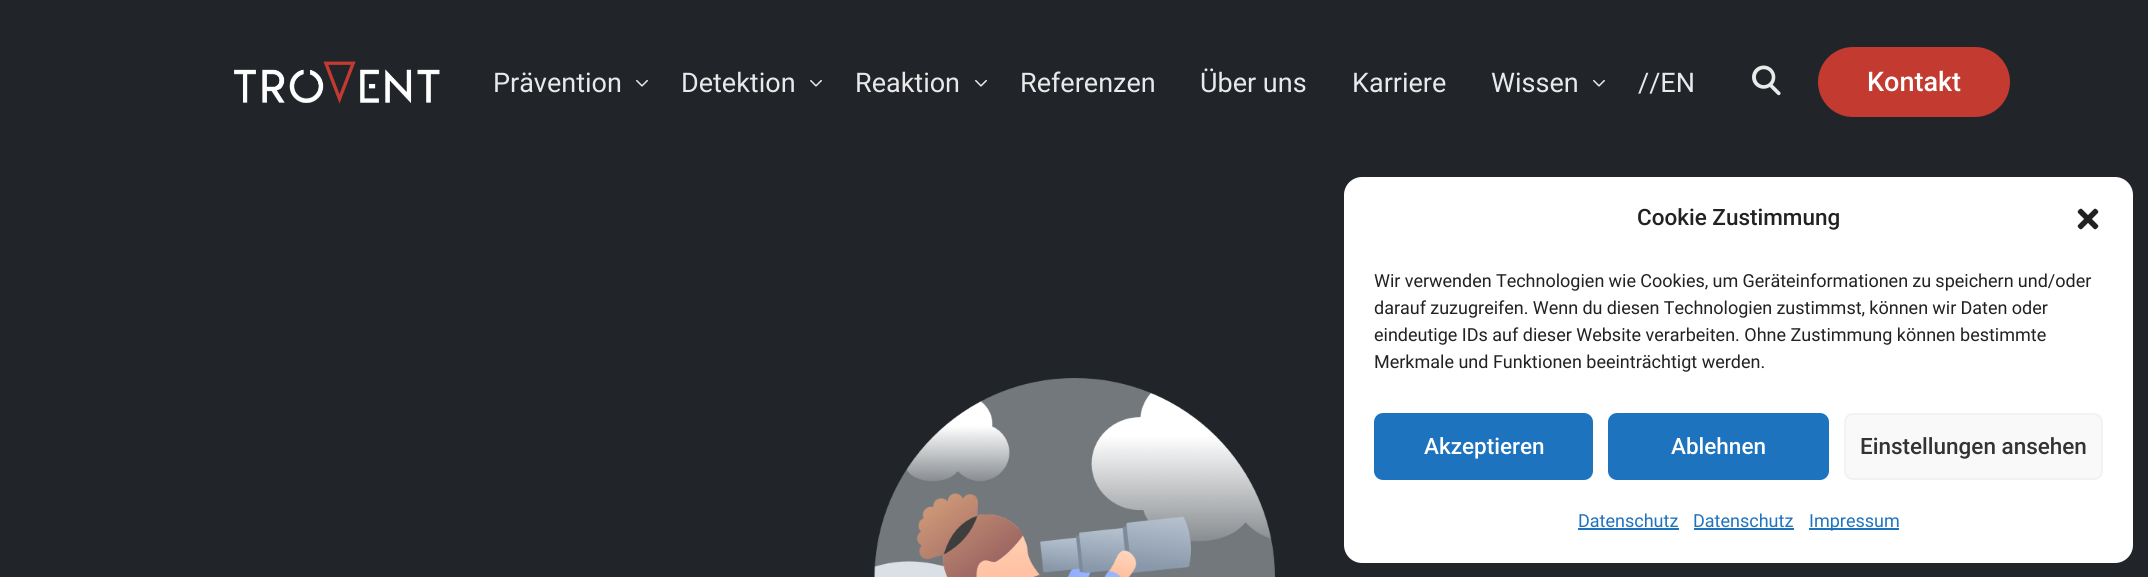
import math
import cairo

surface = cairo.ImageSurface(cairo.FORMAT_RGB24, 2148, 577)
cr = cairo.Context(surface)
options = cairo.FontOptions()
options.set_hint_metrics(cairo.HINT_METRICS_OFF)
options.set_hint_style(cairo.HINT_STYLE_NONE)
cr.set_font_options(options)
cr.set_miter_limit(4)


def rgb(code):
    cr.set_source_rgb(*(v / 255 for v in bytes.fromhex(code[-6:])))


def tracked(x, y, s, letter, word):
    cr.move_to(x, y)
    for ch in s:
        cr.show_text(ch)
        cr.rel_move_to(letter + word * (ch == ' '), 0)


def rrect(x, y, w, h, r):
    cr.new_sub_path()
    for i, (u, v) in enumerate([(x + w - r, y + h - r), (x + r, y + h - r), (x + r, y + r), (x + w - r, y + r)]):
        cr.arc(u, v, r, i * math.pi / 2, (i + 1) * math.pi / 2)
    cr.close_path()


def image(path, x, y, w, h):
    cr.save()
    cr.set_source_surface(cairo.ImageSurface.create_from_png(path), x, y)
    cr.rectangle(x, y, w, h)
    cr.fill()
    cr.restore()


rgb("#212529")
cr.paint()
image("img/1.png", 234, 61, 206, 43)
image("img/2.png", 636, 79, 12, 8)
image("img/2.png", 810, 79, 12, 8)
image("img/2.png", 975, 79, 12, 8)
image("img/2.png", 1593, 79, 12, 8)
image("img/3.png", 1752, 65, 29, 31)
rgb("#c33a30")
rrect(1818, 47, 192, 70, 35)
cr.fill()
image("img/4.png", 874, 378, 401, 199)
rgb("#ffffff")
rrect(1344, 177, 789, 386, 18)
cr.fill()
image("img/5.png", 2077, 208, 22, 22)
rgb("#1e73be")
rrect(1375, 414, 217, 65, 8)
cr.fill_preserve()
cr.stroke()
rrect(1609, 414, 219, 65, 8)
cr.fill_preserve()
cr.stroke()
rgb("#f9f9f9")
rrect(1845, 414, 257, 65, 8)
cr.fill_preserve()
rgb("#f2f2f2")
cr.stroke()
for x, y, w, h, color in [
    (1578, 528, 101, 2, "#1e73be"),
    (1694, 528, 100, 2, "#1e73be"),
    (1809, 528, 90, 2, "#1e73be"),
]:
    rgb(color)
    cr.rectangle(x, y, w, h)
    cr.fill()
cr.select_font_face("Roboto")
cr.set_font_size(27)
rgb("#e9e9ea")
for x, y, s in [
    (493, 92, "Prävention"),
    (681, 92, "Detektion"),
    (855, 92, "Reaktion"),
    (1020, 92, "Referenzen"),
    (1200, 92, "Über uns"),
    (1352, 92, "Karriere"),
    (1491, 92, "Wissen"),
    (1638, 92, "//EN"),
]:
    cr.move_to(x, y)
    cr.show_text(s)
cr.select_font_face("Roboto Medium")
rgb("#ffffff")
cr.move_to(1867, 91)
cr.show_text("Kontakt")
cr.set_font_size(22.5)
rgb("#222222")
cr.move_to(1637, 225)
cr.show_text("Cookie Zustimmung")
cr.select_font_face("Roboto")
cr.set_font_size(18)
tracked(1374, 287, "Wir verwenden Technologien wie Cookies, um Geräteinformationen zu speichern und/oder", 0, -0.25)
tracked(1374, 314, "darauf zuzugreifen. Wenn du diesen Technologien zustimmst, können wir Daten oder", 0, -0.25)
cr.move_to(1374, 341)
cr.show_text("eindeutige IDs auf dieser Website verarbeiten. Ohne Zustimmung können bestimmte")
cr.move_to(1374, 368)
cr.show_text("Merkmale und Funktionen beeinträchtigt werden.")
cr.select_font_face("Roboto Medium")
cr.set_font_size(22.5)
rgb("#ffffff")
cr.move_to(1424, 454)
cr.show_text("Akzeptieren")
cr.move_to(1671, 454)
cr.show_text("Ablehnen")
rgb("#333333")
cr.move_to(1860, 454)
cr.show_text("Einstellungen ansehen")
cr.select_font_face("Roboto")
cr.set_font_size(18)
rgb("#1e73be")
for x, y, s in [
    (1578, 527, "Datenschutz"),
    (1693, 527, "Datenschutz"),
    (1809, 527, "Impressum"),
]:
    cr.move_to(x, y)
    cr.show_text(s)
surface.write_to_png("page.png")
